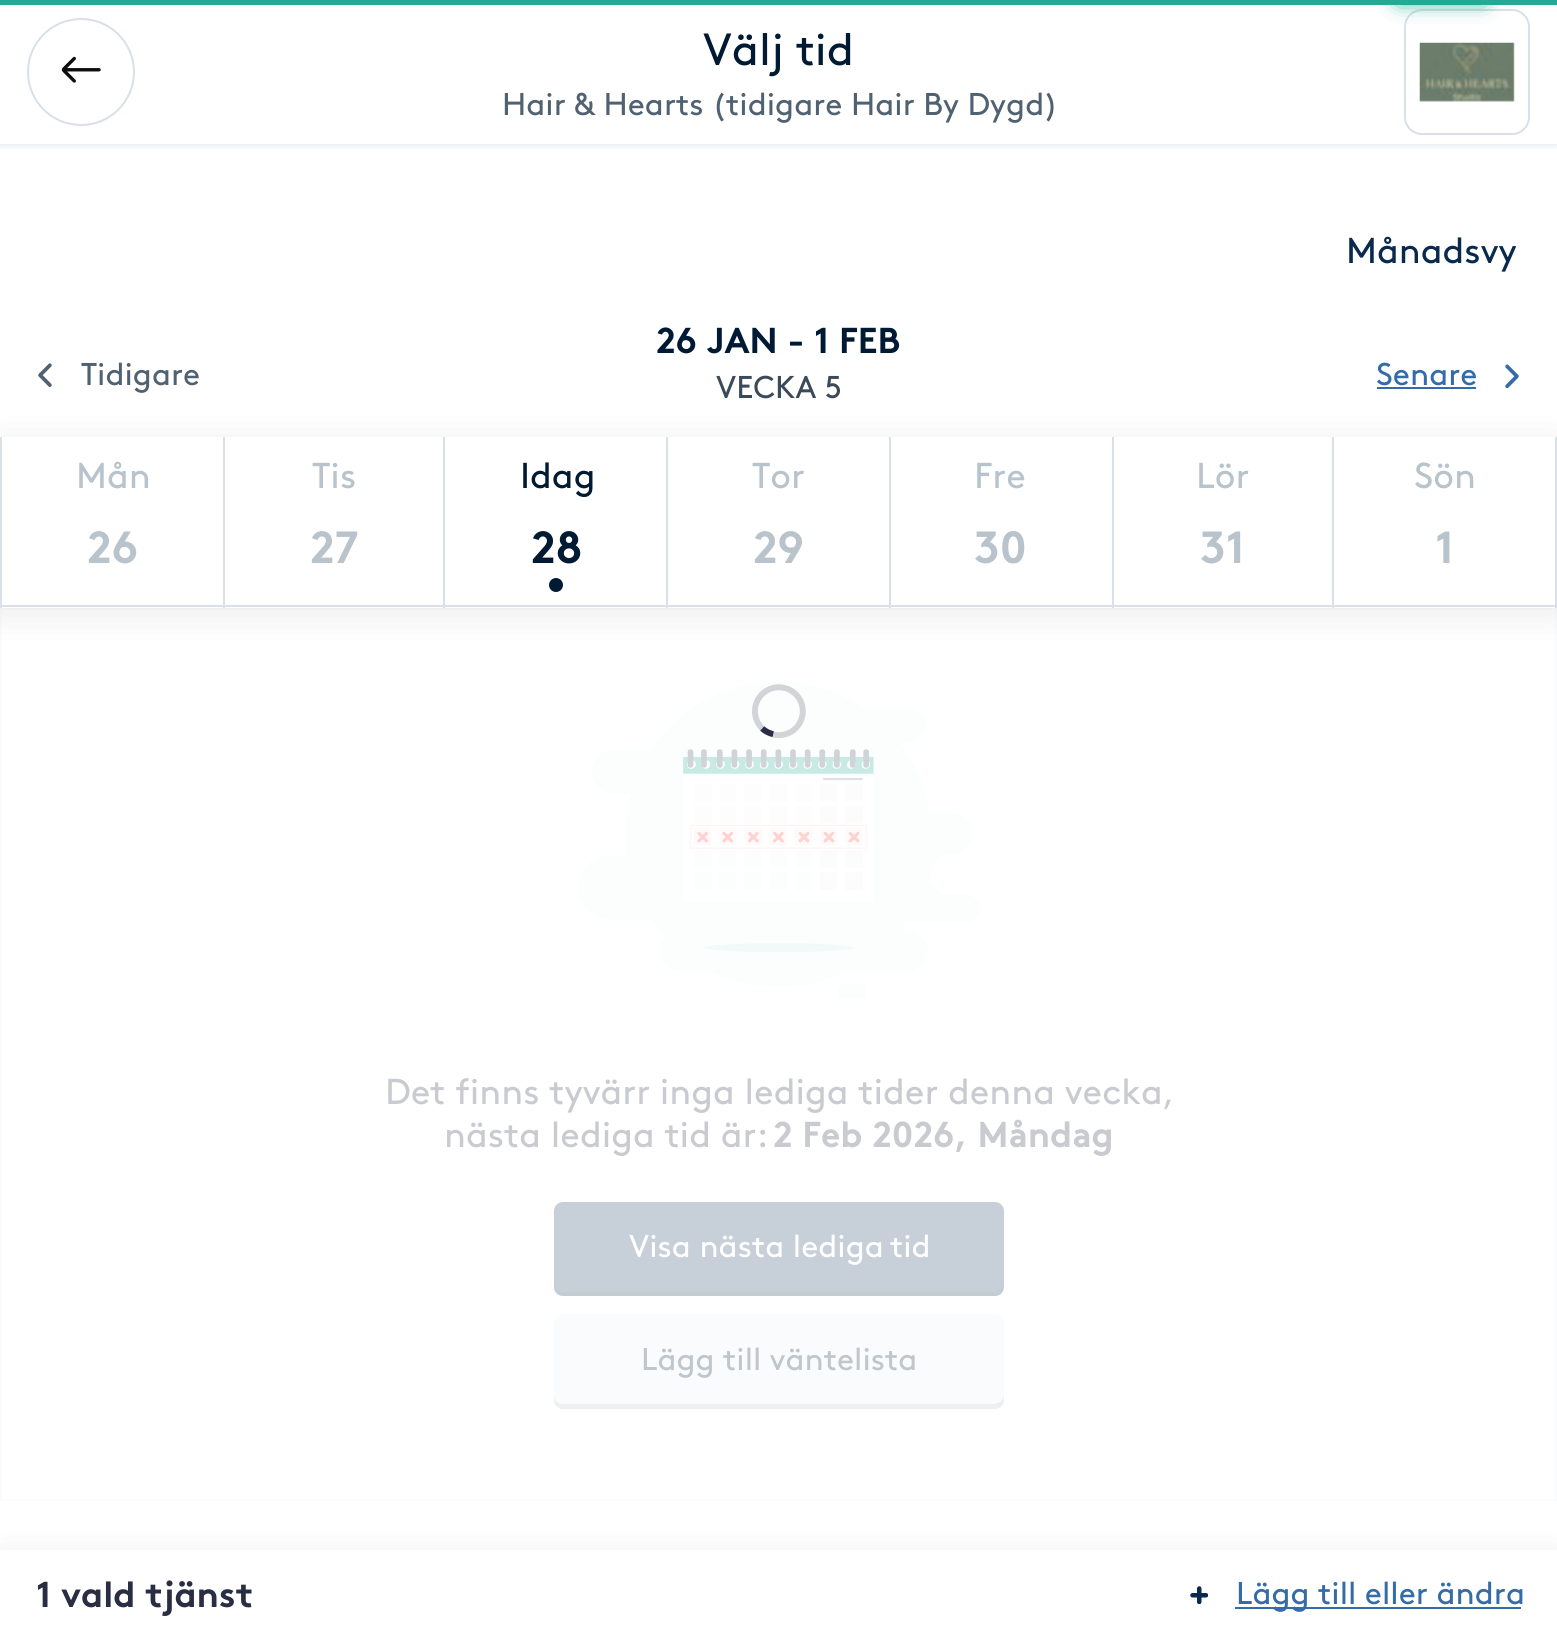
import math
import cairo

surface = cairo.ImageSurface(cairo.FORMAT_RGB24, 1557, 1648)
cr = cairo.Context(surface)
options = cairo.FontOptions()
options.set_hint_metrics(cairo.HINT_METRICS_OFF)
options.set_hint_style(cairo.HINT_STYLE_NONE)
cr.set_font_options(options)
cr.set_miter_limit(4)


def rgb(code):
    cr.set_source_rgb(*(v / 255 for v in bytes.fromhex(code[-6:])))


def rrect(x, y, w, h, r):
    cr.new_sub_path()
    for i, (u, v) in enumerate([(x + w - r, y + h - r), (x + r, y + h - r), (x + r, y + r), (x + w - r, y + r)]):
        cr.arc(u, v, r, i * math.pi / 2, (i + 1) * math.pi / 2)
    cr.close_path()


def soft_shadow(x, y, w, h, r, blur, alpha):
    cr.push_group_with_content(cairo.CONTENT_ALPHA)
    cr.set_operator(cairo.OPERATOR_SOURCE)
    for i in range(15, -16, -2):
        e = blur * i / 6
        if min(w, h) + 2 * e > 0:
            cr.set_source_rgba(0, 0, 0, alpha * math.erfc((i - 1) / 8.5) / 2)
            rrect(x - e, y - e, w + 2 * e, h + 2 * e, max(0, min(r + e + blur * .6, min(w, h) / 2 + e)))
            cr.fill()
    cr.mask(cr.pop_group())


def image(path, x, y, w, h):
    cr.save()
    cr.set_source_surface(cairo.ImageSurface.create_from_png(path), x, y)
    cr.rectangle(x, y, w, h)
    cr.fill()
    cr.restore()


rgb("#ffffff")
cr.paint()
cr.save()
cr.rectangle(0, 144, 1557, 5)
cr.clip()
rgb("#001a33")
soft_shadow(0, 2, 1557, 144, 0, 3.5, 0.1)
cr.restore()
rgb("#23a994")
cr.rectangle(0, 0, 1557, 5)
cr.fill()
rrect(1405, 10, 124, 124, 17)
rgb("#d9e0e7")
cr.stroke()
rgb("#23a994")
soft_shadow(1402, -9, 79, 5, 0, 11.5, 1)
soft_shadow(1402, -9, 79, 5, 0, 11.5, 1)
cr.arc(81, 72, 53, 0, 2 * math.pi)
rgb("#d9e0e7")
cr.stroke()
image("img/1.png", 61, 56, 40, 27)
image("img/2.png", 1419, 42, 96, 60)
cr.rectangle(1, 609, 1555, 891)
rgb("#f9fbfc")
cr.stroke()
rgb("#000000")
soft_shadow(0, 443, 1557, 171, 0, 18, 0.08)
rgb("#ffffff")
cr.rectangle(2, 437, 1553, 171)
cr.fill()
image("img/3.png", 38, 363, 14, 24)
rgb("#336ca8")
cr.rectangle(1377, 387, 99, 2)
cr.fill()
image("img/4.png", 1505, 364, 14, 25)
for x, y, w, h, color in [
    (0, 605, 1332, 2, "#d9e0e7"),
    (0, 437, 2, 171, "#d9e0e7"),
    (223, 437, 2, 171, "#d9e0e7"),
    (443, 437, 2, 171, "#d9e0e7"),
]:
    rgb(color)
    cr.rectangle(x, y, w, h)
    cr.fill()
rgb("#001a33")
cr.arc(556, 585, 7, 0, 2 * math.pi)
cr.fill()
for x, y, w, h, color in [
    (666, 437, 2, 171, "#d9e0e7"),
    (889, 437, 2, 171, "#d9e0e7"),
    (1112, 437, 2, 171, "#d9e0e7"),
    (1555, 437, 2, 171, "#d9e0e7"),
    (1332, 605, 225, 2, "#d9e0e7"),
    (1332, 437, 2, 171, "#d9e0e7"),
]:
    rgb(color)
    cr.rectangle(x, y, w, h)
    cr.fill()
image("img/6.png", 578, 682, 402, 317)
image("img/5.png", 752, 684, 54, 54)
rgb("#c7cfd8")
rrect(554, 1202, 450, 94, 9)
cr.fill()
cr.set_source_rgba(0.749, 0.749, 0.749, 0.2)
cr.new_path()
cr.move_to(554, 1282)
cr.line_to(554, 1287)
cr.curve_to(554, 1292, 558, 1296, 563, 1296)
cr.line_to(995, 1296)
cr.curve_to(1000, 1296, 1004, 1292, 1004, 1287)
cr.line_to(1004, 1282)
cr.curve_to(1004, 1287, 999, 1292, 994, 1292)
cr.line_to(562, 1292)
cr.curve_to(558, 1292, 554, 1287, 554, 1282)
cr.close_path()
cr.fill()
rgb("#f9fbfc")
rrect(554, 1314, 450, 95, 9)
cr.fill()
cr.set_source_rgba(0.749, 0.749, 0.749, 0.2)
cr.new_path()
cr.move_to(554, 1395)
cr.line_to(554, 1400)
cr.curve_to(554, 1405, 558, 1409, 563, 1409)
cr.line_to(995, 1409)
cr.curve_to(1000, 1409, 1004, 1405, 1004, 1400)
cr.line_to(1004, 1395)
cr.curve_to(1004, 1400, 999, 1404, 994, 1404)
cr.line_to(562, 1404)
cr.curve_to(558, 1404, 554, 1400, 554, 1395)
cr.close_path()
cr.fill()
rgb("#000000")
soft_shadow(0, 1557, 1557, 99, 0, 18, 0.08)
rgb("#ffffff")
cr.rectangle(0, 1550, 1557, 98)
cr.fill()
image("img/7.png", 1190, 1586, 18, 18)
rgb("#336ca8")
cr.rectangle(1235, 1607, 286, 2)
cr.fill()
cr.select_font_face("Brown")
cr.set_font_size(45)
rgb("#001a33")
cr.move_to(703, 65)
cr.show_text("Välj tid")
cr.set_font_size(31.5)
rgb("#506172")
cr.move_to(502, 115)
cr.show_text("Hair & Hearts (tidigare Hair By Dygd)")
cr.set_font_size(36)
rgb("#092a4e")
cr.move_to(1346, 263)
cr.show_text("Månadsvy")
cr.select_font_face("Brown", cairo.FONT_SLANT_NORMAL, cairo.FONT_WEIGHT_BOLD)
rgb("#001a33")
cr.move_to(656, 353)
cr.show_text("26 JAN - 1 FEB")
cr.select_font_face("Brown")
cr.set_font_size(31.5)
rgb("#3b4a58")
cr.move_to(716, 398)
cr.show_text("VECKA 5")
rgb("#506172")
cr.move_to(81, 385)
cr.show_text("Tidigare")
rgb("#336ca8")
cr.move_to(1376, 385)
cr.show_text("Senare")
cr.set_font_size(36)
rgb("#b8c3cc")
cr.move_to(76, 488)
cr.show_text("Mån")
cr.select_font_face("Brown", cairo.FONT_SLANT_NORMAL, cairo.FONT_WEIGHT_BOLD)
cr.set_font_size(45)
cr.move_to(87, 563)
cr.show_text("26")
cr.select_font_face("Brown")
cr.set_font_size(36)
cr.move_to(312, 488)
cr.show_text("Tis")
cr.select_font_face("Brown", cairo.FONT_SLANT_NORMAL, cairo.FONT_WEIGHT_BOLD)
cr.set_font_size(45)
cr.move_to(310, 563)
cr.show_text("27")
cr.select_font_face("Brown")
cr.set_font_size(36)
rgb("#001a33")
cr.move_to(520, 488)
cr.show_text("Idag")
cr.select_font_face("Brown", cairo.FONT_SLANT_NORMAL, cairo.FONT_WEIGHT_BOLD)
cr.set_font_size(45)
cr.move_to(531, 563)
cr.show_text("28")
cr.select_font_face("Brown")
cr.set_font_size(36)
rgb("#b8c3cc")
cr.move_to(752, 488)
cr.show_text("Tor")
cr.select_font_face("Brown", cairo.FONT_SLANT_NORMAL, cairo.FONT_WEIGHT_BOLD)
cr.set_font_size(45)
cr.move_to(753, 563)
cr.show_text("29")
cr.select_font_face("Brown")
cr.set_font_size(36)
cr.move_to(974, 488)
cr.show_text("Fre")
cr.select_font_face("Brown", cairo.FONT_SLANT_NORMAL, cairo.FONT_WEIGHT_BOLD)
cr.set_font_size(45)
cr.move_to(974, 563)
cr.show_text("30")
cr.select_font_face("Brown")
cr.set_font_size(36)
cr.move_to(1196, 488)
cr.show_text("Lör")
cr.select_font_face("Brown", cairo.FONT_SLANT_NORMAL, cairo.FONT_WEIGHT_BOLD)
cr.set_font_size(45)
cr.move_to(1200, 563)
cr.show_text("31")
cr.select_font_face("Brown")
cr.set_font_size(36)
cr.move_to(1414, 488)
cr.show_text("Sön")
cr.select_font_face("Brown", cairo.FONT_SLANT_NORMAL, cairo.FONT_WEIGHT_BOLD)
cr.set_font_size(45)
cr.move_to(1435, 563)
cr.show_text("1")
cr.select_font_face("Brown")
cr.set_font_size(36)
rgb("#cacbd0")
cr.move_to(385, 1104)
cr.show_text("Det finns tyvärr inga lediga tider denna vecka,")
cr.move_to(444, 1147)
cr.show_text("nästa lediga tid är:")
cr.select_font_face("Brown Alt", cairo.FONT_SLANT_NORMAL, cairo.FONT_WEIGHT_BOLD)
cr.move_to(773, 1147)
cr.show_text("2 Feb 2026, Måndag")
cr.select_font_face("Brown")
cr.set_font_size(31.5)
rgb("#ffffff")
cr.move_to(629, 1257)
cr.show_text("Visa nästa lediga")
cr.move_to(890, 1257)
cr.show_text("tid")
rgb("#bfc6cc")
cr.move_to(641, 1370)
cr.show_text("Lägg till väntelista")
cr.select_font_face("Brown", cairo.FONT_SLANT_NORMAL, cairo.FONT_WEIGHT_BOLD)
cr.set_font_size(36)
rgb("#2a2e43")
cr.move_to(36, 1607)
cr.show_text("1 vald tjänst")
cr.select_font_face("Brown")
cr.set_font_size(31.5)
rgb("#336ca8")
cr.move_to(1236, 1604)
cr.show_text("Lägg till eller ändra")
surface.write_to_png("page.png")
